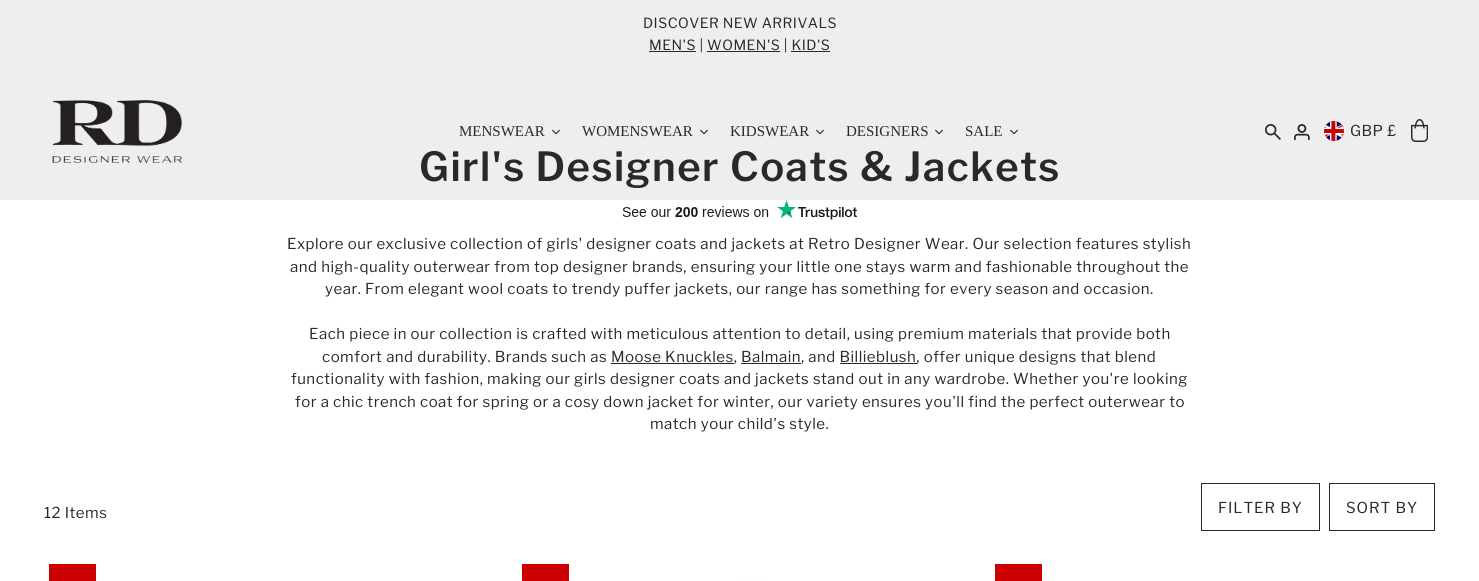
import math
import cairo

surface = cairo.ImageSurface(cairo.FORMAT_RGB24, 1479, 581)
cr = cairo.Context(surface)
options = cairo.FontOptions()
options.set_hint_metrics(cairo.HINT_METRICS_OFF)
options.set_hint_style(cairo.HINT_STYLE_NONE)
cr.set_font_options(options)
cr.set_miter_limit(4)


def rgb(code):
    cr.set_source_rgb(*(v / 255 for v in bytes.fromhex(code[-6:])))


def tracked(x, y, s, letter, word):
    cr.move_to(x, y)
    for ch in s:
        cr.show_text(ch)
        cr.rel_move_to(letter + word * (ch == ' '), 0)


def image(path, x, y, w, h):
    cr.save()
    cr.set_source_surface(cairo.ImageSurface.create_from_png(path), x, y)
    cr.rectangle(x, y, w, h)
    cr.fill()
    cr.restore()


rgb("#ffffff")
cr.paint()
for x, y, w, h, color in [
    (0, 0, 1479, 200, "#eeeeee"),
    (649, 51, 47, 1, "#292929"),
    (707, 51, 73, 1, "#292929"),
    (791, 51, 39, 1, "#292929"),
]:
    rgb(color)
    cr.rectangle(x, y, w, h)
    cr.fill()
image("img/1.png", 52, 100, 130, 63)
image("img/2.png", 552, 129, 8, 6)
image("img/2.png", 700, 129, 8, 6)
image("img/2.png", 816, 129, 8, 6)
image("img/2.png", 935, 129, 8, 6)
image("img/2.png", 1010, 129, 8, 6)
image("img/3.png", 1265, 124, 16, 16)
image("img/4.png", 1294, 124, 16, 16)
image("img/5.png", 1324, 121, 20, 20)
image("img/6.png", 1411, 119, 17, 23)
image("img/7.png", 622, 200, 235, 20)
for x, y, w, h, color in [
    (611, 363, 123, 1, "#292929"),
    (741, 363, 60, 1, "#292929"),
    (840, 363, 77, 1, "#292929"),
]:
    rgb(color)
    cr.rectangle(x, y, w, h)
    cr.fill()
cr.rectangle(1201.5, 483.5, 118, 47)
cr.set_line_width(1)
cr.stroke()
cr.rectangle(1329.5, 483.5, 105, 47)
cr.stroke()
rgb("#cc0000")
cr.rectangle(49, 564, 47, 17)
cr.fill()
cr.rectangle(522, 564, 47, 17)
cr.fill()
image("img/8.png", 741, 580, 25, 1)
cr.rectangle(995, 564, 47, 17)
cr.fill()
cr.select_font_face("Libre Franklin")
cr.set_font_size(14)
rgb("#292929")
tracked(643, 28, "DISCOVER NEW ARRIVALS", 0.5, 0)
tracked(649, 50, "MEN'S | WOMEN'S | KID'S", 0.5, 0)
cr.select_font_face("Liberation Serif")
cr.set_font_size(15)
for x, y, s in [
    (459, 136, "MENSWEAR"),
    (582, 136, "WOMENSWEAR"),
    (730, 136, "KIDSWEAR"),
    (846, 136, "DESIGNERS"),
    (965, 136, "SALE"),
]:
    cr.move_to(x, y)
    cr.show_text(s)
cr.select_font_face("Libre Franklin")
tracked(1350, 136, "GBP £", 0.5, 0)
cr.select_font_face("Libre Franklin SemiBold")
cr.set_font_size(40)
tracked(419, 181, "Girl's Designer Coats & Jackets", 1.5, 0)
cr.select_font_face("Libre Franklin")
cr.set_font_size(15)
for x, y, s in [
    (287, 249, "Explore our exclusive collection of girls' designer coats and jackets at Retro Designer Wear. Our selection features stylish"),
    (290, 272, "and high-quality outerwear from top designer brands, ensuring your little one stays warm and fashionable throughout the"),
    (325, 294, "year. From elegant wool coats to trendy puffer jackets, our range has something for every season and occasion."),
    (309, 339, "Each piece in our collection is crafted with meticulous attention to detail, using premium materials that provide both"),
    (322, 362, "comfort and durability. Brands such as Moose Knuckles, Balmain, and Billieblush, offer unique designs that blend"),
    (291, 384, "functionality with fashion, making our girls designer coats and jackets stand out in any wardrobe. Whether you're looking"),
    (295, 407, "for a chic trench coat for spring or a cosy down jacket for winter, our variety ensures you'll find the perfect outerwear to"),
    (650, 429, "match your child's style."),
    (44, 518, "12 Items"),
]:
    tracked(x, y, s, 0.5, 0)
tracked(1218, 513, "FILTER BY", 1, 0)
tracked(1346, 513, "SORT BY", 1, 0)
surface.write_to_png("page.png")
